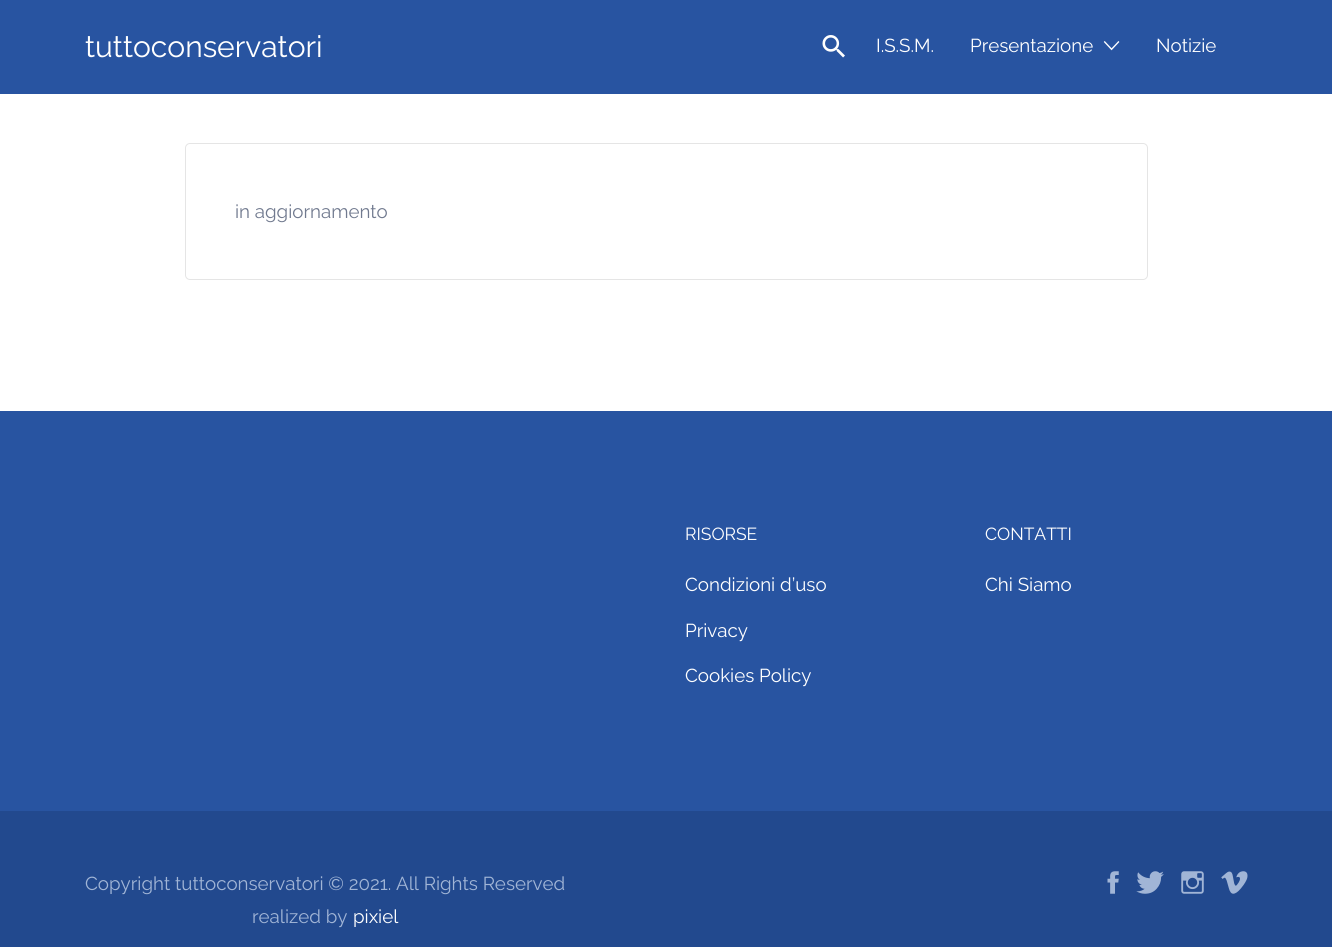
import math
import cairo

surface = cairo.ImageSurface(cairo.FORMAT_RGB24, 1332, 947)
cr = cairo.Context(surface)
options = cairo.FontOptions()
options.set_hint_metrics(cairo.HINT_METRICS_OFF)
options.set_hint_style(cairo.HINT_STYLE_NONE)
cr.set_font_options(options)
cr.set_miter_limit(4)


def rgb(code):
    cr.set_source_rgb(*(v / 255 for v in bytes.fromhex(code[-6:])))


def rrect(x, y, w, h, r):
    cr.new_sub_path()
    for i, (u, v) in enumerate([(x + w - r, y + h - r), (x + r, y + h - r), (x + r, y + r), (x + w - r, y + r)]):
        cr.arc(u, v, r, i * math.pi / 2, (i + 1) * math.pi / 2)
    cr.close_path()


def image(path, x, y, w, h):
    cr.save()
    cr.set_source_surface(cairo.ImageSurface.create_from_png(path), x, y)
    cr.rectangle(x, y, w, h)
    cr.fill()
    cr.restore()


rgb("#ffffff")
cr.paint()
rgb("#2854a1")
cr.rectangle(0, 0, 1332, 94)
cr.fill()
image("img/1.png", 822, 35, 23, 23)
image("img/2.png", 1103, 41, 17, 10)
rrect(185.5, 143.5, 962, 136, 4.5)
rgb("#e5e5e5")
cr.set_line_width(1)
cr.stroke()
rgb("#2854a1")
cr.rectangle(0, 411, 1332, 400)
cr.fill()
rgb("#22498e")
cr.rectangle(0, 811, 1332, 136)
cr.fill()
image("img/3.png", 1107, 871, 12, 23)
image("img/4.png", 1136, 871, 28, 23)
image("img/5.png", 1181, 871, 23, 23)
image("img/6.png", 1221, 871, 27, 23)
cr.select_font_face("Raleway")
cr.set_font_size(30)
rgb("#ffffff")
cr.move_to(85, 57)
cr.show_text("tuttoconservatori")
cr.set_font_size(18.75)
for x, y, s in [
    (876, 52, "I.S.S.M."),
    (970, 52, "Presentazione"),
    (1156, 52, "Notizie"),
]:
    cr.move_to(x, y)
    cr.show_text(s)
rgb("#717a8f")
cr.move_to(235, 218)
cr.show_text("in aggiornamento")
cr.set_font_size(17.5)
rgb("#ffffff")
cr.move_to(685, 540)
cr.show_text("RISORSE")
cr.set_font_size(18.75)
for x, y, s in [
    (685, 591, "Condizioni d’uso"),
    (685, 637, "Privacy"),
    (685, 682, "Cookies Policy"),
]:
    cr.move_to(x, y)
    cr.show_text(s)
cr.set_font_size(17.5)
cr.move_to(985, 540)
cr.show_text("CONTATTI")
cr.set_font_size(18.75)
cr.move_to(985, 591)
cr.show_text("Chi Siamo")
rgb("#a1b5d6")
cr.move_to(85, 890)
cr.show_text("Copyright tuttoconservatori © 2021. All Rights Reserved")
cr.move_to(252, 923)
cr.show_text("realized by")
rgb("#ffffff")
cr.move_to(353, 923)
cr.show_text("pixiel")
surface.write_to_png("page.png")
